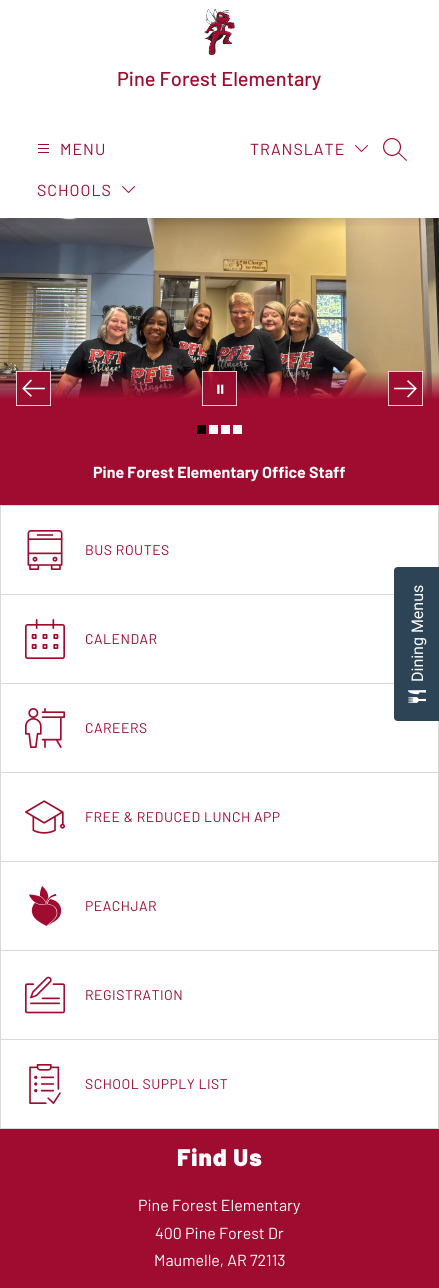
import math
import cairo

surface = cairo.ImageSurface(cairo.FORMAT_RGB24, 439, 1288)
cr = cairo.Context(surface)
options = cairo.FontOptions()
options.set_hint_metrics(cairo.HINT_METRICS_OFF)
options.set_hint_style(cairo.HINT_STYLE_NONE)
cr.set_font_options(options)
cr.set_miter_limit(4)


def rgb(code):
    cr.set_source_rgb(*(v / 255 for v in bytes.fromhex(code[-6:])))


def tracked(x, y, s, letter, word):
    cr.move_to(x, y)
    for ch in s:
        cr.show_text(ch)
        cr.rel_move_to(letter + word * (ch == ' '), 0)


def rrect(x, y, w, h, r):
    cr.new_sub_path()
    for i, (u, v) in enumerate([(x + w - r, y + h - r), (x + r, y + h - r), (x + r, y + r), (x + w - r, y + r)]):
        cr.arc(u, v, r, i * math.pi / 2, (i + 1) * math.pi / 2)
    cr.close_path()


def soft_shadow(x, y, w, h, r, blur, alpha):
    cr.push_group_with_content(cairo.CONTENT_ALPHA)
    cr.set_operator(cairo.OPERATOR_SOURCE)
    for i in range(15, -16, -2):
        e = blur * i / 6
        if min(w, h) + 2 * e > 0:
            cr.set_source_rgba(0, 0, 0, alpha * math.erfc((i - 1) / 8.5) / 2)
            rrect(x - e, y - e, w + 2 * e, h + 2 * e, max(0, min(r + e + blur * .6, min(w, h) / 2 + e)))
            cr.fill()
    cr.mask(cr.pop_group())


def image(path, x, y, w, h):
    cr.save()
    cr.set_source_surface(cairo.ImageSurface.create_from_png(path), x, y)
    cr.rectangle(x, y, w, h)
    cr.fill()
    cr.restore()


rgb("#ffffff")
cr.paint()
image("img/5.png", 0, 218, 439, 188)
cr.save()
cr.rectangle(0, 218, 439, 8)
cr.clip()
rgb("#000000")
soft_shadow(0, 4, 439, 218, 0, 5, 0.1)
cr.restore()
image("img/1.png", 204, 9, 31, 47)
image("img/2.png", 38, 144, 11, 9)
image("img/3.png", 122, 186, 13, 7)
image("img/3.png", 355, 145, 13, 7)
image("img/4.png", 383, 138, 24, 23)
rgb("#a00c30")
cr.rectangle(0, 406, 439, 99)
cr.fill()
cr.rectangle(16, 371, 35, 28)
cr.fill()
image("img/6.png", 16, 371, 35, 35)
image("img/7.png", 202, 371, 35, 35)
cr.rectangle(388, 371, 35, 28)
cr.fill()
image("img/8.png", 388, 371, 35, 35)
for x, y, w, h, color in [
    (197, 425, 9, 9, "#000000"),
    (209, 425, 9, 9, "#ffffff"),
    (221, 425, 9, 9, "#ffffff"),
    (233, 425, 9, 9, "#ffffff"),
]:
    rgb(color)
    cr.rectangle(x, y, w, h)
    cr.fill()
cr.rectangle(0.5, 505.5, 438, 89)
rgb("#d9d9d9")
cr.set_line_width(1)
cr.stroke()
image("img/9.png", 27, 530, 36, 40)
cr.set_source_rgba(0, 0, 0, 0.15)
cr.new_path()
cr.move_to(439, 684)
cr.line_to(0, 684)
cr.line_to(1, 683)
cr.line_to(438, 683)
cr.close_path()
cr.fill()
cr.new_path()
cr.move_to(0, 684)
cr.line_to(0, 595)
cr.line_to(1, 595)
cr.line_to(1, 683)
cr.close_path()
cr.fill()
image("img/10.png", 25, 619, 40, 40)
rgb("#d9d9d9")
cr.new_path()
cr.move_to(439, 684)
cr.line_to(439, 773)
cr.line_to(438, 772)
cr.line_to(438, 684)
cr.close_path()
cr.fill()
cr.set_source_rgba(0, 0, 0, 0.15)
cr.new_path()
cr.move_to(439, 773)
cr.line_to(0, 773)
cr.line_to(1, 772)
cr.line_to(438, 772)
cr.close_path()
cr.fill()
cr.new_path()
cr.move_to(0, 773)
cr.line_to(0, 684)
cr.line_to(1, 684)
cr.line_to(1, 772)
cr.close_path()
cr.fill()
image("img/11.png", 25, 708, 40, 40)
rgb("#d9d9d9")
cr.new_path()
cr.move_to(439, 773)
cr.line_to(439, 862)
cr.line_to(438, 861)
cr.line_to(438, 773)
cr.close_path()
cr.fill()
cr.set_source_rgba(0, 0, 0, 0.15)
cr.new_path()
cr.move_to(439, 862)
cr.line_to(0, 862)
cr.line_to(1, 861)
cr.line_to(438, 861)
cr.close_path()
cr.fill()
cr.new_path()
cr.move_to(0, 862)
cr.line_to(0, 773)
cr.line_to(1, 773)
cr.line_to(1, 861)
cr.close_path()
cr.fill()
image("img/12.png", 25, 800, 40, 34)
rgb("#d9d9d9")
cr.new_path()
cr.move_to(439, 862)
cr.line_to(439, 951)
cr.line_to(438, 950)
cr.line_to(438, 862)
cr.close_path()
cr.fill()
cr.set_source_rgba(0, 0, 0, 0.15)
cr.new_path()
cr.move_to(439, 951)
cr.line_to(0, 951)
cr.line_to(1, 950)
cr.line_to(438, 950)
cr.close_path()
cr.fill()
cr.new_path()
cr.move_to(0, 951)
cr.line_to(0, 862)
cr.line_to(1, 862)
cr.line_to(1, 950)
cr.close_path()
cr.fill()
image("img/13.png", 29, 886, 33, 40)
rgb("#d9d9d9")
cr.new_path()
cr.move_to(439, 951)
cr.line_to(439, 1040)
cr.line_to(438, 1039)
cr.line_to(438, 951)
cr.close_path()
cr.fill()
cr.set_source_rgba(0, 0, 0, 0.15)
cr.new_path()
cr.move_to(439, 1040)
cr.line_to(0, 1040)
cr.line_to(1, 1039)
cr.line_to(438, 1039)
cr.close_path()
cr.fill()
cr.new_path()
cr.move_to(0, 1040)
cr.line_to(0, 951)
cr.line_to(1, 951)
cr.line_to(1, 1039)
cr.close_path()
cr.fill()
image("img/14.png", 25, 976, 40, 38)
rgb("#d9d9d9")
cr.new_path()
cr.move_to(439, 1040)
cr.line_to(439, 1129)
cr.line_to(438, 1128)
cr.line_to(438, 1040)
cr.close_path()
cr.fill()
cr.set_source_rgba(0, 0, 0, 0.15)
cr.new_path()
cr.move_to(439, 1129)
cr.line_to(0, 1129)
cr.line_to(1, 1128)
cr.line_to(438, 1128)
cr.close_path()
cr.fill()
cr.new_path()
cr.move_to(0, 1129)
cr.line_to(0, 1040)
cr.line_to(1, 1040)
cr.line_to(1, 1128)
cr.close_path()
cr.fill()
image("img/15.png", 29, 1064, 32, 40)
rgb("#a00c30")
cr.rectangle(0, 1129, 439, 159)
cr.fill()
rgb("#2c4456")
cr.new_path()
cr.move_to(394, 717)
cr.line_to(394, 571)
cr.curve_to(394, 568, 396, 567, 398, 567)
cr.line_to(439, 567)
cr.line_to(439, 721)
cr.line_to(398, 721)
cr.curve_to(396, 721, 394, 720, 394, 717)
cr.close_path()
cr.fill()
image("img/16.png", 408, 690, 18, 13)
cr.select_font_face("Barlow Medium")
cr.set_font_size(20)
rgb("#a00c30")
cr.move_to(117, 86)
cr.show_text("Pine Forest Elementary")
cr.select_font_face("Barlow")
cr.set_font_size(16)
for x, y, s in [
    (60, 155, "MENU"),
    (37, 196, "SCHOOLS"),
    (250, 155, "TRANSLATE"),
]:
    tracked(x, y, s, 1, 0)
cr.select_font_face("Barlow", cairo.FONT_SLANT_NORMAL, cairo.FONT_WEIGHT_BOLD)
rgb("#ffffff")
cr.move_to(93, 478)
cr.show_text("Pine Forest Elementary Office Staff")
cr.select_font_face("Barlow")
cr.set_font_size(14)
rgb("#a00c30")
for x, y, s in [
    (85, 555, "BUS ROUTES"),
    (85, 644, "CALENDAR"),
    (85, 733, "CAREERS"),
    (85, 822, "FREE & REDUCED LUNCH APP"),
    (85, 911, "PEACHJAR"),
    (85, 1000, "REGISTRATION"),
    (85, 1089, "SCHOOL SUPPLY LIST"),
]:
    tracked(x, y, s, 0.5, 0)
cr.select_font_face("Barlow Black")
cr.set_font_size(24)
rgb("#ffffff")
tracked(177, 1166, "Find Us", 1, 0)
cr.select_font_face("Barlow")
cr.set_font_size(16)
for x, y, s in [
    (138, 1211, "Pine Forest Elementary"),
    (155, 1239, "400 Pine Forest Dr"),
    (154, 1266, "Maumelle, AR 72113"),
]:
    cr.move_to(x, y)
    cr.show_text(s)
cr.select_font_face("Roboto")
cr.save()
cr.translate(423, 682)
cr.rotate(-90 * math.pi / 180)
cr.move_to(0, 0)
cr.show_text("Dining Menus")
cr.restore()
surface.write_to_png("page.png")
